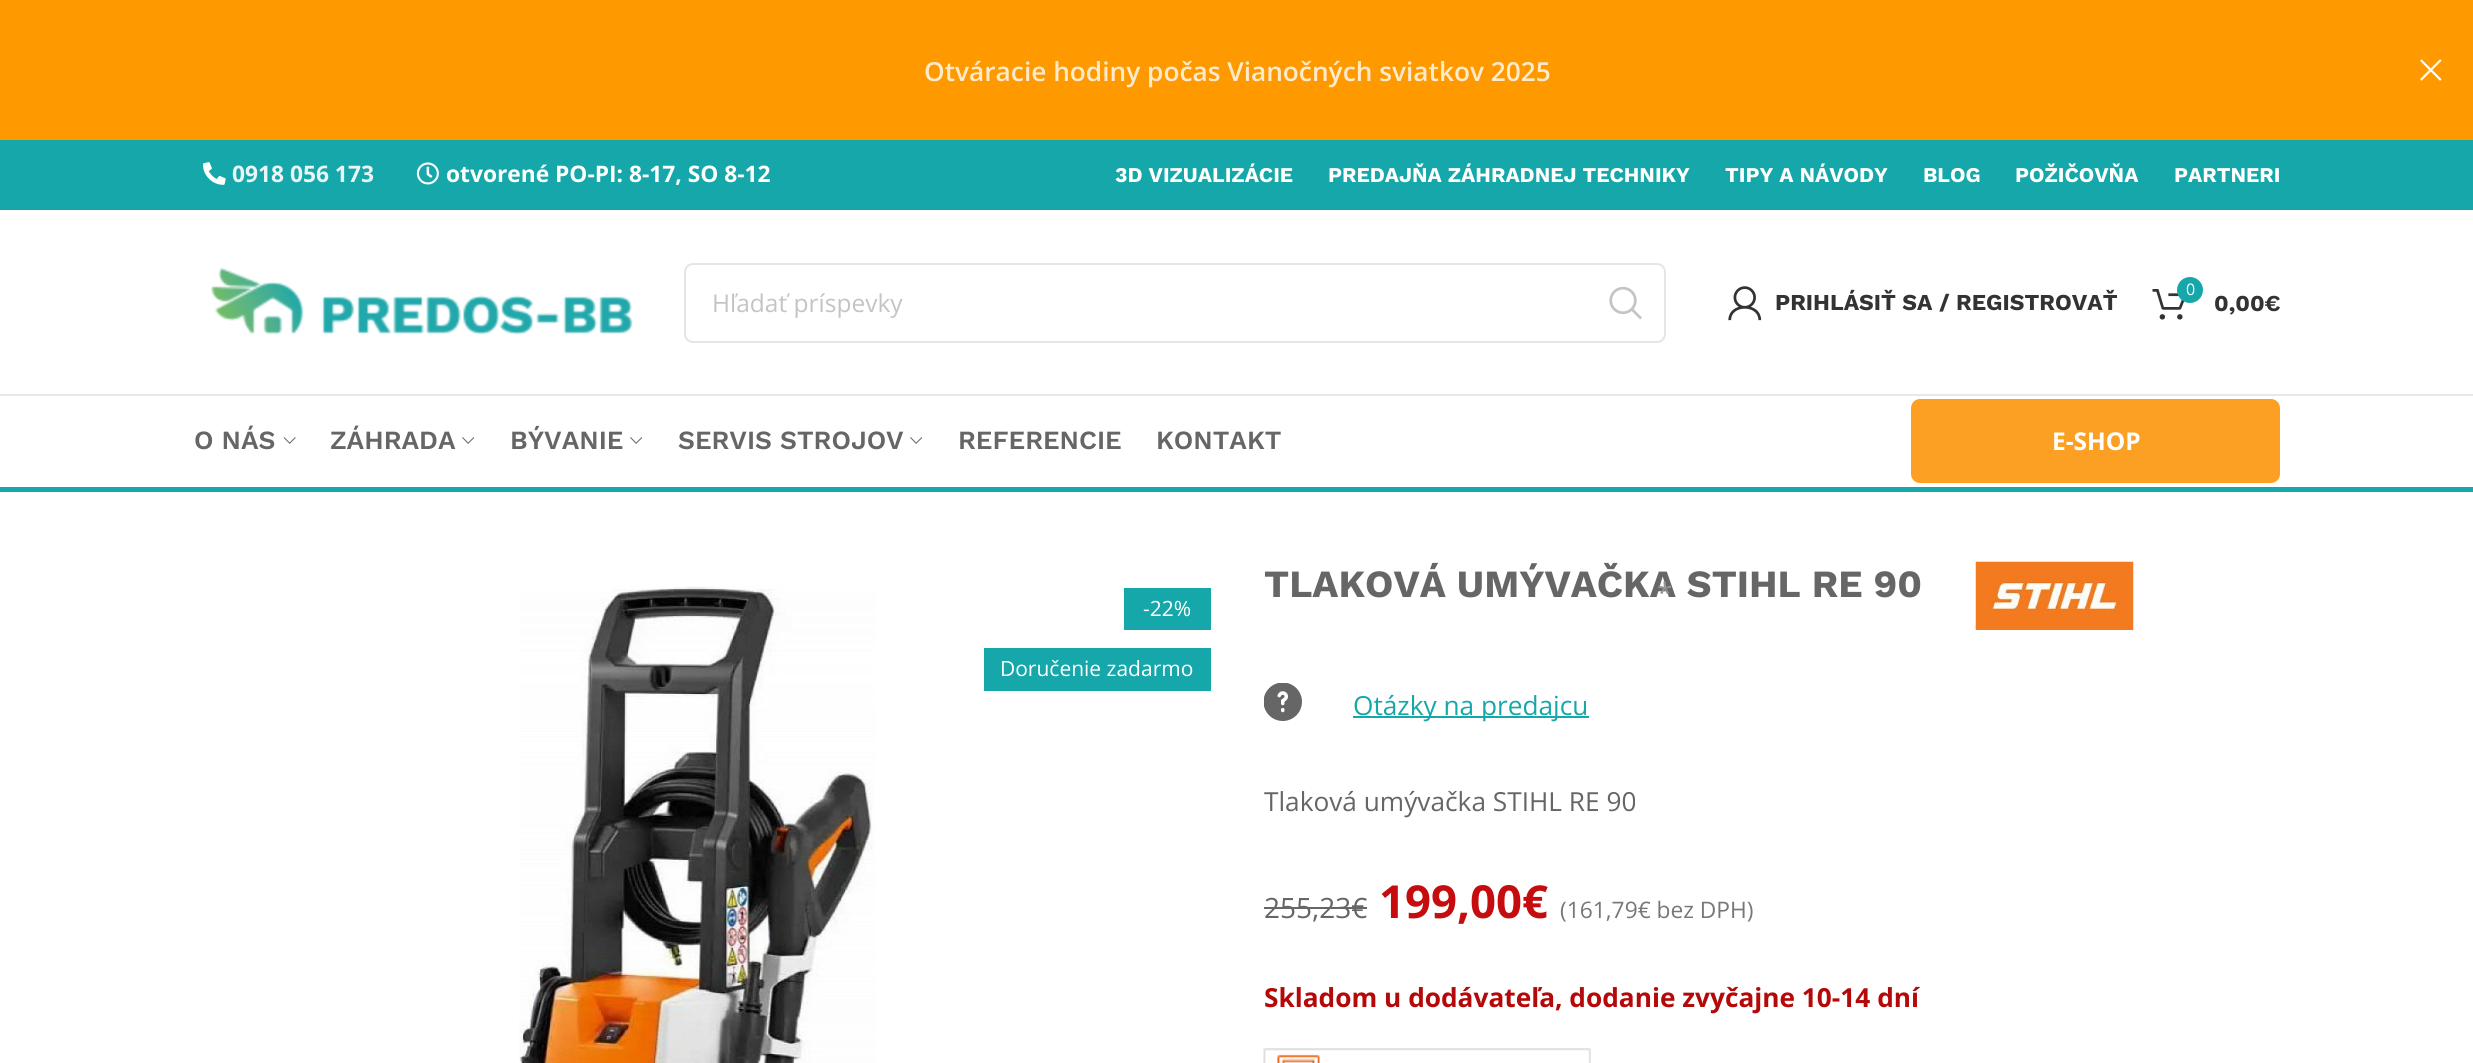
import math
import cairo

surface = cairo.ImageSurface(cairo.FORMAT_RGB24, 2473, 1063)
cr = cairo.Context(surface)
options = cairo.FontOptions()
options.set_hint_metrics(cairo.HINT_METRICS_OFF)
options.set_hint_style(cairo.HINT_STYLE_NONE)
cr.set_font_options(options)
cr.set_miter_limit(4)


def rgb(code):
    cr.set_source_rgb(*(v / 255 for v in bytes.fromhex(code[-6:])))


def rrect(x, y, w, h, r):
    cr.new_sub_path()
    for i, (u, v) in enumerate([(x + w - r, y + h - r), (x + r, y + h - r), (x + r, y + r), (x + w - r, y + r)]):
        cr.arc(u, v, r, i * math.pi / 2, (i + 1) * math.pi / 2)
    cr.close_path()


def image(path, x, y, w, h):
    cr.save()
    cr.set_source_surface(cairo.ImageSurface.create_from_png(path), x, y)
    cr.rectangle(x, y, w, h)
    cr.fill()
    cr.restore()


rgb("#ffffff")
cr.paint()
rgb("#ff9900")
cr.rectangle(0, 0, 2473, 140)
cr.fill()
image("img/1.png", 2420, 59, 22, 22)
cr.new_path()
cr.move_to(2420, 80.5)
cr.curve_to(2414.5, 75, 2414.5, 65, 2420, 59.5)
cr.set_line_width(1.8)
cr.stroke()
rgb("#15a7aa")
cr.rectangle(0, 140, 2473, 70)
cr.fill()
image("img/2.png", 203, 162, 23, 23)
image("img/3.png", 416, 162, 23, 23)
rgb("#e8e8e8")
cr.rectangle(0, 394, 2473, 2)
cr.fill()
image("img/4.png", 211, 267, 422, 68)
rrect(685, 264, 980, 78, 8)
rgb("#e5e5e5")
cr.set_line_width(2)
cr.stroke()
image("img/5.png", 1609, 286, 33, 34)
image("img/6.png", 1728, 286, 34, 35)
image("img/7.png", 2152, 289, 33, 31)
rgb("#15a7aa")
cr.arc(2190, 290, 13, 0, 2 * math.pi)
cr.fill()
cr.rectangle(0, 487, 2473, 5)
cr.fill()
image("img/8.png", 283, 437, 13, 7)
image("img/9.png", 462, 437, 13, 7)
image("img/9.png", 630, 437, 13, 7)
image("img/9.png", 910, 437, 13, 7)
rgb("#fca024")
rrect(1911, 399, 369, 84, 9)
cr.fill()
image("img/10.png", 519, 586, 356, 477)
rgb("#15a7aa")
cr.rectangle(1124, 588, 87, 42)
cr.fill()
cr.rectangle(984, 648, 227, 43)
cr.fill()
image("img/11.png", 1975, 561, 159, 69)
image("img/12.png", 1264, 683, 38, 38)
cr.rectangle(1353, 716, 236, 2)
cr.fill()
rgb("#666666")
cr.rectangle(1264, 907, 103, 2)
cr.fill()
image("img/13.png", 1263, 1048, 328, 15)
cr.select_font_face("Open Sans SemiBold")
cr.set_font_size(26.25)
rgb("#ffebcc")
cr.move_to(924, 81)
cr.show_text("Otváracie hodiny počas Vianočných sviatkov 2025")
cr.select_font_face("Open Sans", cairo.FONT_SLANT_NORMAL, cairo.FONT_WEIGHT_BOLD)
cr.set_font_size(22.75)
rgb("#e8f6f7")
cr.move_to(232, 182)
cr.show_text("0918 056 173")
rgb("#ffffff")
cr.move_to(446, 182)
cr.show_text("otvorené PO-PI: 8-17, SO 8-12")
cr.select_font_face("Work Sans", cairo.FONT_SLANT_NORMAL, cairo.FONT_WEIGHT_BOLD)
cr.set_font_size(21)
for x, y, s in [
    (1115, 182, "3D VIZUALIZÁCIE"),
    (1328, 182, "PREDAJŇA ZÁHRADNEJ TECHNIKY"),
    (1725, 182, "TIPY A NÁVODY"),
    (1923, 182, "BLOG"),
    (2015, 182, "POŽIČOVŇA"),
    (2174, 182, "PARTNERI"),
]:
    cr.move_to(x, y)
    cr.show_text(s)
cr.select_font_face("Open Sans")
cr.set_font_size(24.5)
rgb("#c4c4c4")
cr.move_to(712, 312)
cr.show_text("Hľadať príspevky")
cr.select_font_face("Work Sans", cairo.FONT_SLANT_NORMAL, cairo.FONT_WEIGHT_BOLD)
cr.set_font_size(22.75)
rgb("#333333")
cr.move_to(1775, 310)
cr.show_text("PRIHLÁSIŤ SA / REGISTROVAŤ")
cr.select_font_face("Open Sans")
cr.set_font_size(16)
rgb("#ffffff")
cr.move_to(2186, 295)
cr.show_text("0")
cr.select_font_face("Work Sans", cairo.FONT_SLANT_NORMAL, cairo.FONT_WEIGHT_BOLD)
cr.set_font_size(22.75)
rgb("#333333")
cr.move_to(2214, 311)
cr.show_text("0,00€")
cr.select_font_face("Work Sans SemiBold")
cr.set_font_size(26.25)
rgb("#666666")
for x, y, s in [
    (194, 449, "O NÁS"),
    (330, 449, "ZÁHRADA"),
    (510, 449, "BÝVANIE"),
    (678, 449, "SERVIS STROJOV"),
    (958, 449, "REFERENCIE"),
    (1156, 449, "KONTAKT"),
]:
    cr.move_to(x, y)
    cr.show_text(s)
cr.select_font_face("Open Sans", cairo.FONT_SLANT_NORMAL, cairo.FONT_WEIGHT_BOLD)
cr.set_font_size(24.5)
rgb("#ffffff")
cr.move_to(2052, 450)
cr.show_text("E-SHOP")
cr.select_font_face("Open Sans")
cr.set_font_size(21)
cr.move_to(1143, 616)
cr.show_text("-22%")
cr.move_to(1000, 676)
cr.show_text("Doručenie zadarmo")
cr.select_font_face("Work Sans", cairo.FONT_SLANT_NORMAL, cairo.FONT_WEIGHT_BOLD)
cr.set_font_size(38.5)
rgb("#666666")
cr.move_to(1264, 597)
cr.show_text("TLAKOVÁ UMÝVAČKA STIHL RE 90")
cr.select_font_face("Open Sans")
cr.set_font_size(28)
rgb("#949494")
cr.move_to(1657, 603)
cr.show_text("*")
cr.set_font_size(26.25)
rgb("#15a7aa")
cr.move_to(1353, 715)
cr.show_text("Otázky na predajcu")
rgb("#666666")
cr.move_to(1264, 811)
cr.show_text("Tlaková umývačka STIHL RE 90")
cr.set_font_size(28)
cr.move_to(1264, 918)
cr.show_text("255,23€")
cr.select_font_face("Open Sans", cairo.FONT_SLANT_NORMAL, cairo.FONT_WEIGHT_BOLD)
cr.set_font_size(45.5)
rgb("#c50c0e")
cr.move_to(1379, 918)
cr.show_text("199,00€")
cr.select_font_face("Open Sans")
cr.set_font_size(22.75)
rgb("#777777")
cr.move_to(1560, 918)
cr.show_text("(161,79€ bez DPH)")
cr.select_font_face("Open Sans", cairo.FONT_SLANT_NORMAL, cairo.FONT_WEIGHT_BOLD)
cr.set_font_size(26.25)
rgb("#b50808")
cr.move_to(1264, 1007)
cr.show_text("Skladom u dodávateľa, dodanie zvyčajne 10-14 dní")
surface.write_to_png("page.png")
